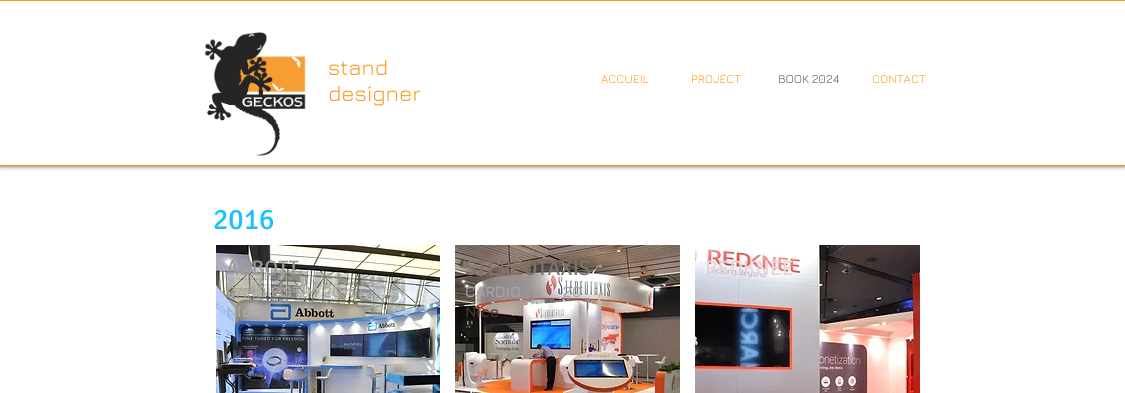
import math
import cairo

surface = cairo.ImageSurface(cairo.FORMAT_RGB24, 1125, 393)
cr = cairo.Context(surface)
options = cairo.FontOptions()
options.set_hint_metrics(cairo.HINT_METRICS_OFF)
options.set_hint_style(cairo.HINT_STYLE_NONE)
cr.set_font_options(options)
cr.set_miter_limit(4)


def rgb(code):
    cr.set_source_rgb(*(v / 255 for v in bytes.fromhex(code[-6:])))


def rrect(x, y, w, h, r):
    cr.new_sub_path()
    for i, (u, v) in enumerate([(x + w - r, y + h - r), (x + r, y + h - r), (x + r, y + r), (x + w - r, y + r)]):
        cr.arc(u, v, r, i * math.pi / 2, (i + 1) * math.pi / 2)
    cr.close_path()


def soft_shadow(x, y, w, h, r, blur, alpha):
    cr.push_group_with_content(cairo.CONTENT_ALPHA)
    cr.set_operator(cairo.OPERATOR_SOURCE)
    for i in range(15, -16, -2):
        e = blur * i / 6
        if min(w, h) + 2 * e > 0:
            cr.set_source_rgba(0, 0, 0, alpha * math.erfc((i - 1) / 8.5) / 2)
            rrect(x - e, y - e, w + 2 * e, h + 2 * e, max(0, min(r + e + blur * .6, min(w, h) / 2 + e)))
            cr.fill()
    cr.mask(cr.pop_group())


def image(path, x, y, w, h):
    cr.save()
    cr.set_source_surface(cairo.ImageSurface.create_from_png(path), x, y)
    cr.rectangle(x, y, w, h)
    cr.fill()
    cr.restore()


rgb("#ffffff")
cr.paint()
cr.save()
cr.rectangle(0, 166, 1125, 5)
cr.clip()
rgb("#000000")
soft_shadow(0, 0, 1125, 166, 0, 2.5, 0.7)
cr.restore()
rgb("#fc9a1b")
cr.rectangle(0, 0, 1125, 1)
cr.fill()
cr.rectangle(0, 165, 1125, 1)
cr.fill()
image("img/1.png", 204, 32, 102, 124)
image("img/2.png", 216, 245, 224, 148)
image("img/3.png", 455, 245, 225, 148)
image("img/4.png", 695, 245, 225, 148)
cr.select_font_face("Jura")
cr.set_font_size(22)
cr.move_to(328, 75)
cr.show_text("stand")
cr.move_to(328, 101)
cr.show_text("designer")
cr.set_font_size(12)
cr.move_to(601, 83)
cr.show_text("ACCUEIL")
cr.move_to(691, 83)
cr.show_text("PROJECT")
rgb("#575757")
cr.move_to(778, 83)
cr.show_text("BOOK 2024")
rgb("#fc9a1b")
cr.move_to(872, 83)
cr.show_text("CONTACT")
cr.select_font_face("Signika")
cr.set_font_size(29)
rgb("#19c0fc")
cr.move_to(213, 229)
cr.show_text("2016")
cr.set_font_size(21)
rgb("#9c9b9d")
cr.move_to(226, 275)
cr.show_text("ABBOTT")
cr.select_font_face("Jura", cairo.FONT_SLANT_NORMAL, cairo.FONT_WEIGHT_BOLD)
cr.set_font_size(15)
rgb("#a7a79e")
cr.move_to(226, 297)
cr.show_text("CARDIOSTIM 2016.")
rgb("#a7adb7")
cr.move_to(226, 317)
cr.show_text("Nic")
cr.select_font_face("Signika")
cr.set_font_size(21)
rgb("#7e7269")
cr.move_to(465, 275)
cr.show_text("STEREOTAXIS")
cr.select_font_face("Jura", cairo.FONT_SLANT_NORMAL, cairo.FONT_WEIGHT_BOLD)
cr.set_font_size(15)
rgb("#aaa3a4")
for x, y, s in [
    (465, 297, "CARDIO"),
    (563, 297, "20"),
    (597, 297, "."),
]:
    cr.move_to(x, y)
    cr.show_text(s)
rgb("#463832")
cr.move_to(465, 317)
cr.show_text("NIce")
cr.select_font_face("Signika")
cr.set_font_size(21)
rgb("#e9d5d9")
cr.move_to(705, 275)
cr.show_text("REDKNEE")
surface.write_to_png("page.png")
